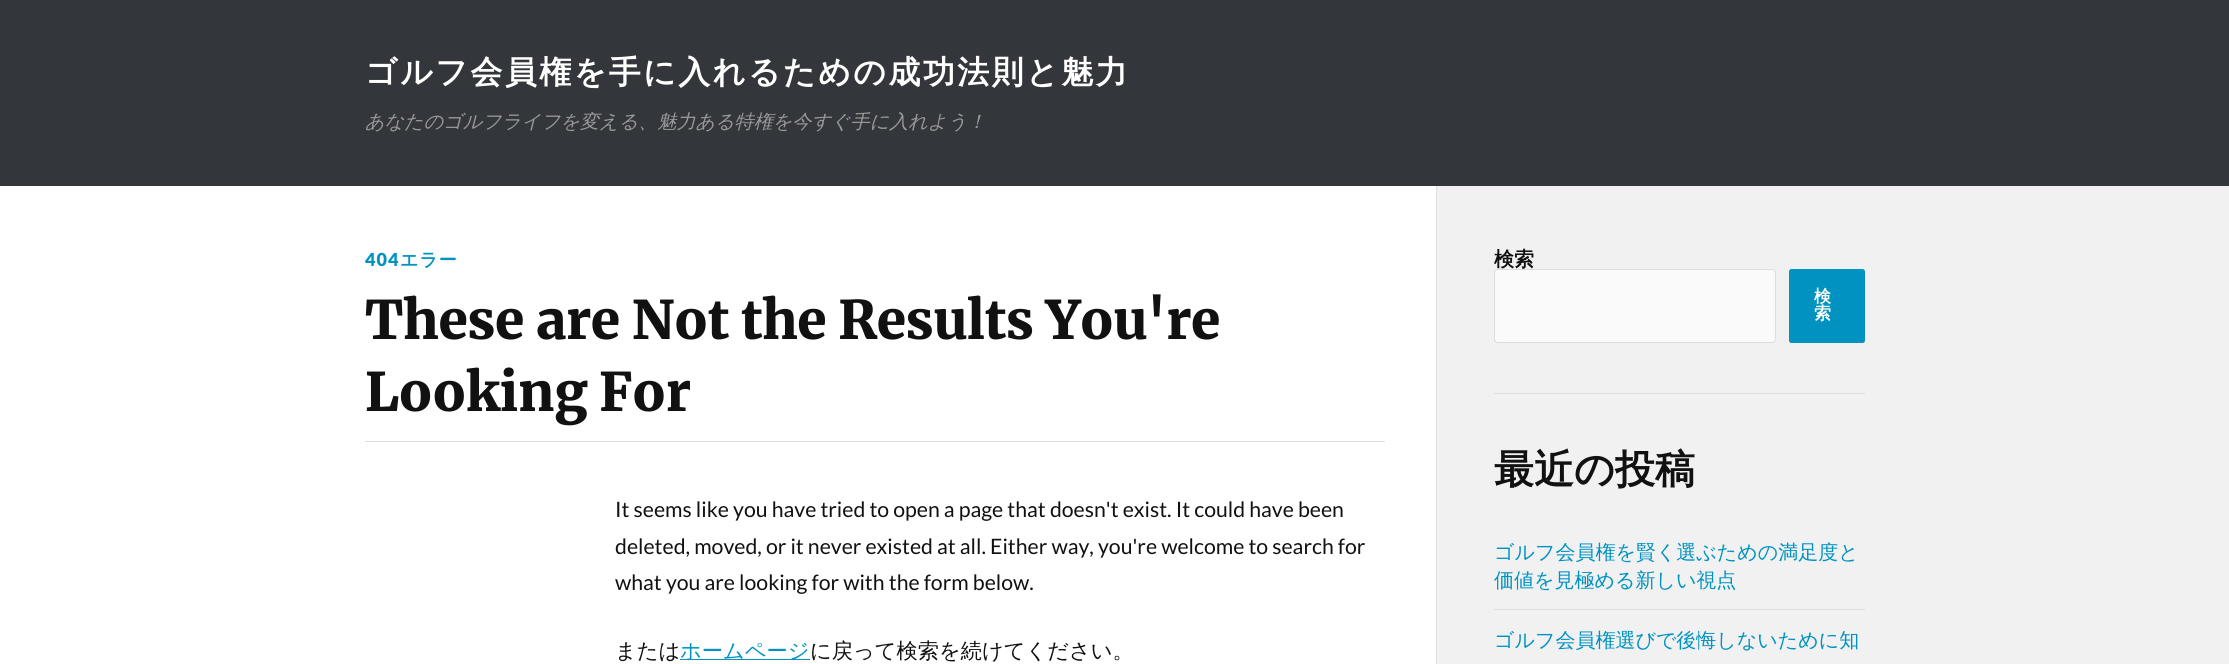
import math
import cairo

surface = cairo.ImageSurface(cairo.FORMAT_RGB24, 2229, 664)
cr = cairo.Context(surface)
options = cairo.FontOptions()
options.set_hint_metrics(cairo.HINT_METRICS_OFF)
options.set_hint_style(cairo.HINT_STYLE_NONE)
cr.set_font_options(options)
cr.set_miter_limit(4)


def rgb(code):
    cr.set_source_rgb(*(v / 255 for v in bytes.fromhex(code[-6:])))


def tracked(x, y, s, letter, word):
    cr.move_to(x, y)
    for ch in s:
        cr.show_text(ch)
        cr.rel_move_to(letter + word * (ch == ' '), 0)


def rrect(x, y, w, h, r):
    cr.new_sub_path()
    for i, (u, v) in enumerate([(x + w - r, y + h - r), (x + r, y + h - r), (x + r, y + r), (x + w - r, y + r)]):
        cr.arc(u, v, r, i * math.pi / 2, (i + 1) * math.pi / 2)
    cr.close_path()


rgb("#f1f1f1")
cr.paint()
for x, y, w, h, color in [
    (0, 0, 2229, 186, "#33363b"),
    (0, 186, 1436, 478, "#ffffff"),
    (365, 441, 1020, 1, "#dddddd"),
    (680, 659, 130, 1, "#0093c2"),
    (1436, 186, 1, 478, "#dddddd"),
]:
    rgb(color)
    cr.rectangle(x, y, w, h)
    cr.fill()
rgb("#fafafa")
rrect(1494.5, 269.5, 281, 73, 3.5)
cr.fill_preserve()
rgb("#dddddd")
cr.set_line_width(1)
cr.stroke()
rgb("#0093c2")
rrect(1789, 269, 76, 74, 2.5)
cr.fill()
rgb("#dddddd")
cr.rectangle(1494, 393, 371, 1)
cr.fill()
cr.rectangle(1494, 609, 371, 1)
cr.fill()
cr.select_font_face("WenQuanYi Zen Hei", cairo.FONT_SLANT_NORMAL, cairo.FONT_WEIGHT_BOLD)
cr.set_font_size(31.9)
rgb("#ffffff")
tracked(365, 83, "ゴルフ会員権を手に入れるための成功法則と魅力", 2.5, 0)
cr.select_font_face("WenQuanYi Zen Hei Medium", cairo.FONT_SLANT_ITALIC)
cr.set_font_size(19.1)
rgb("#999999")
cr.move_to(365, 128)
cr.show_text("あなたのゴルフライフを変える、魅力ある特権を今すぐ手に入れよう！")
cr.select_font_face("Lato Black")
cr.set_font_size(18)
rgb("#0093c2")
tracked(365, 266, "404", 1, 0)
cr.select_font_face("WenQuanYi Zen Hei", cairo.FONT_SLANT_NORMAL, cairo.FONT_WEIGHT_BOLD)
tracked(400, 266, "エラー", 1, 0)
cr.select_font_face("Merriweather Black")
cr.set_font_size(53.1)
rgb("#111111")
tracked(365, 339, "These are Not the Results You're", -0.5, 0)
tracked(365, 411, "Looking For", -0.5, 0)
cr.select_font_face("Lato")
cr.set_font_size(21.25)
for x, y, s in [
    (615, 517, "It seems like you have tried to open a page that doesn't exist. It could have been"),
    (615, 554, "deleted, moved, or it never existed at all. Either way, you're welcome to search for"),
    (615, 590, "what you are looking for with the form below."),
]:
    cr.move_to(x, y)
    cr.show_text(s)
cr.select_font_face("WenQuanYi Zen Hei Medium")
cr.move_to(615, 658)
cr.show_text("または")
rgb("#0093c2")
cr.move_to(680, 658)
cr.show_text("ホームページ")
rgb("#111111")
cr.move_to(810, 658)
cr.show_text("に戻って検索を続けてください。")
cr.select_font_face("WenQuanYi Zen Hei", cairo.FONT_SLANT_NORMAL, cairo.FONT_WEIGHT_BOLD)
cr.set_font_size(20)
cr.move_to(1494, 266)
cr.show_text("検索")
cr.set_font_size(17)
rgb("#ffffff")
tracked(1814, 302, "検", 1, 0)
tracked(1814, 319, "索", 1, 0)
cr.set_font_size(40)
rgb("#111111")
cr.move_to(1494, 483)
cr.show_text("最近の投稿")
cr.select_font_face("WenQuanYi Zen Hei Medium")
cr.set_font_size(20)
rgb("#0093c2")
for x, y, s in [
    (1494, 559, "ゴルフ会員権を賢く選ぶための満足度と"),
    (1494, 587, "価値を見極める新しい視点"),
    (1494, 647, "ゴルフ会員権選びで後悔しないために知"),
]:
    cr.move_to(x, y)
    cr.show_text(s)
surface.write_to_png("page.png")
